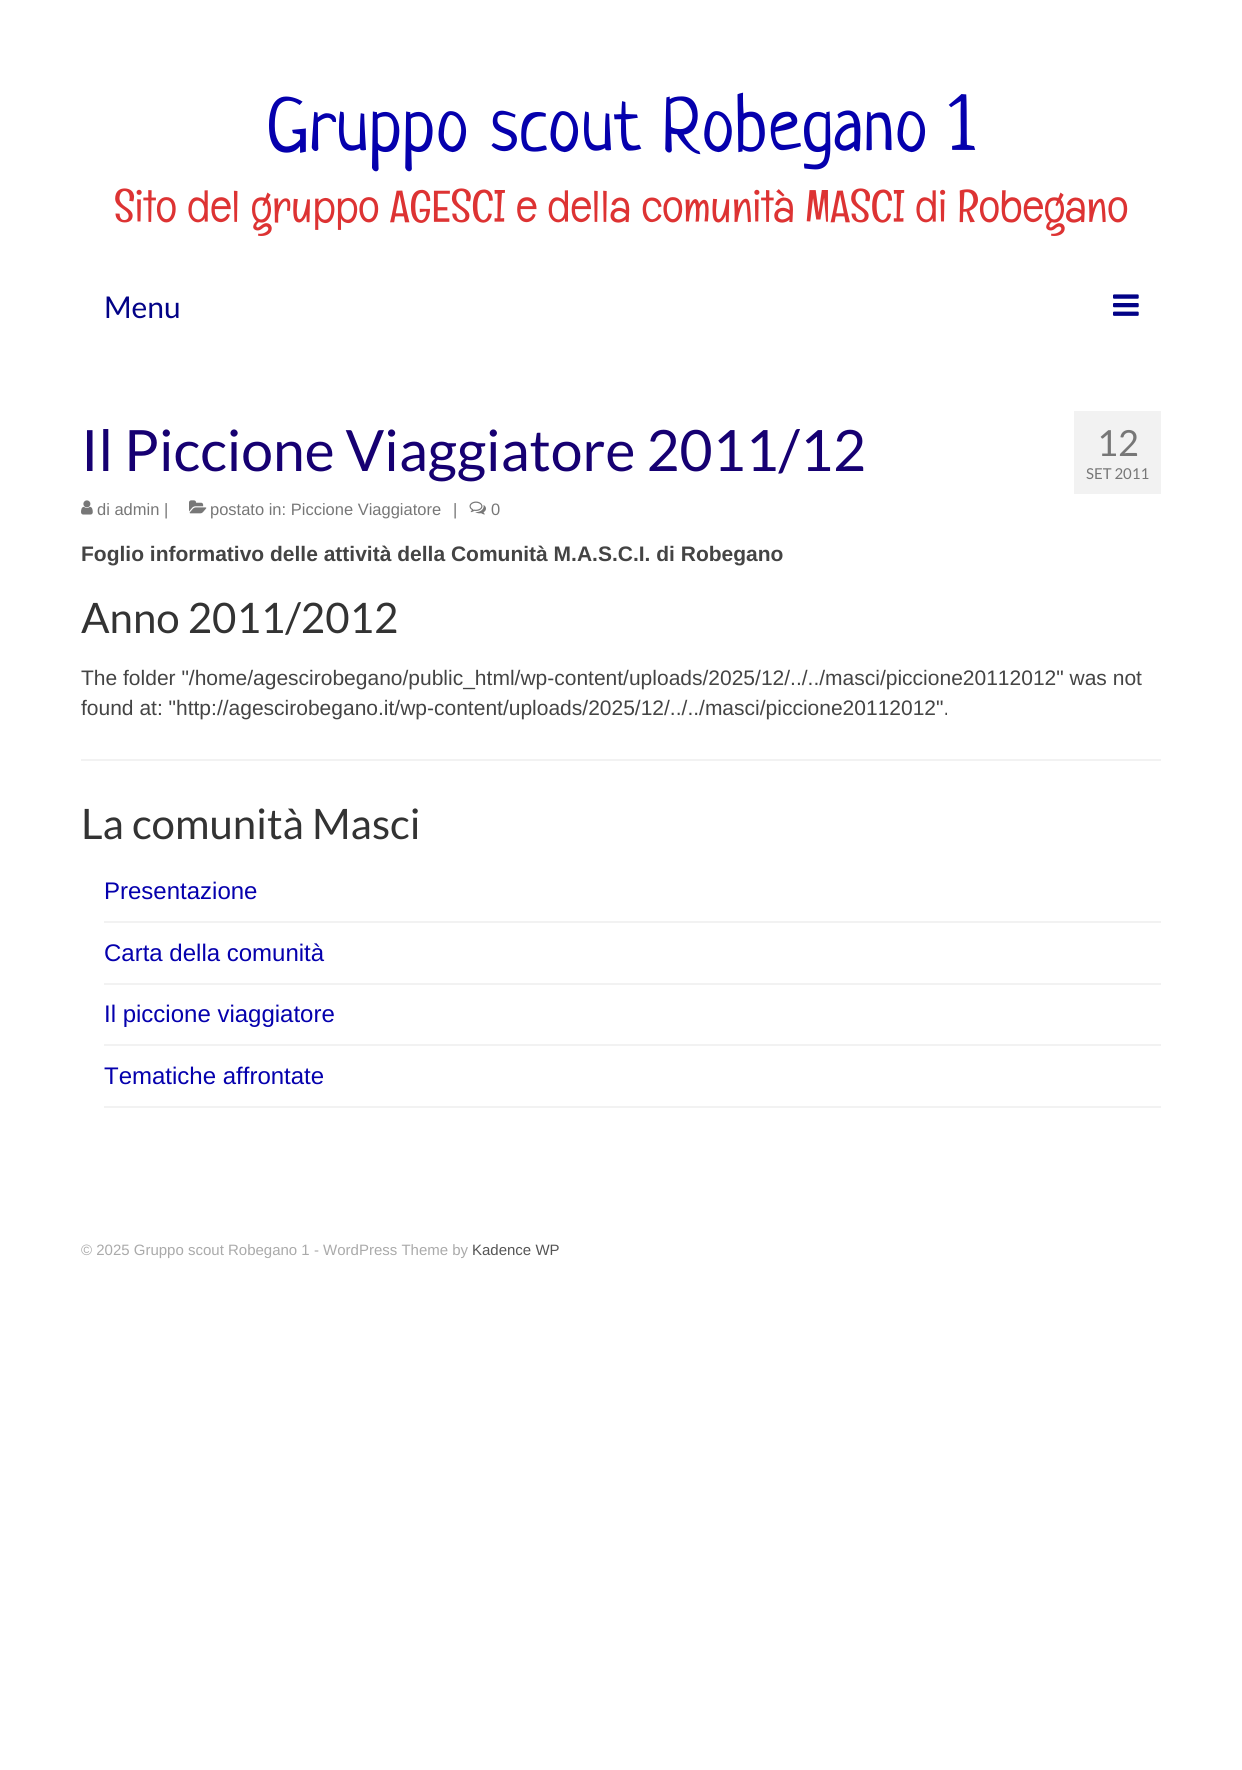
import math
import cairo

surface = cairo.ImageSurface(cairo.FORMAT_RGB24, 1242, 1770)
cr = cairo.Context(surface)
options = cairo.FontOptions()
options.set_hint_metrics(cairo.HINT_METRICS_OFF)
options.set_hint_style(cairo.HINT_STYLE_NONE)
cr.set_font_options(options)
cr.set_miter_limit(4)


def rgb(code):
    cr.set_source_rgb(*(v / 255 for v in bytes.fromhex(code[-6:])))


def image(path, x, y, w, h):
    cr.save()
    cr.set_source_surface(cairo.ImageSurface.create_from_png(path), x, y)
    cr.rectangle(x, y, w, h)
    cr.fill()
    cr.restore()


rgb("#ffffff")
cr.paint()
image("img/1.png", 1113, 294, 26, 22)
image("img/2.png", 81, 500, 12, 15)
image("img/3.png", 189, 500, 18, 14)
image("img/4.png", 469, 501, 17, 14)
for x, y, w, h, color in [
    (1074, 411, 87, 83, "#f2f2f2"),
    (81, 759, 1080, 2, "#f2f2f2"),
    (104, 921, 1057, 2, "#f2f2f2"),
    (104, 983, 1057, 2, "#f2f2f2"),
    (104, 1044, 1057, 2, "#f2f2f2"),
    (104, 1106, 1057, 2, "#f2f2f2"),
]:
    rgb(color)
    cr.rectangle(x, y, w, h)
    cr.fill()
cr.select_font_face("Neucha")
cr.set_font_size(75)
rgb("#0500ad")
cr.move_to(266, 150)
cr.show_text("Gruppo scout Robegano 1")
cr.select_font_face("Englebert")
cr.set_font_size(45)
rgb("#dd3333")
cr.move_to(114, 222)
cr.show_text("Sito del gruppo AGESCI e della comunità MASCI di Robegano")
cr.select_font_face("Lato")
cr.set_font_size(30)
rgb("#020287")
cr.move_to(104, 318)
cr.show_text("Menu")
cr.set_font_size(57)
rgb("#160072")
cr.move_to(81, 471)
cr.show_text("Il Piccione Viaggiatore 2011/12")
cr.select_font_face("Liberation Sans")
cr.set_font_size(16.5)
rgb("#777777")
for x, y, s in [
    (97, 515, "di admin |"),
    (210, 515, "postato in: Piccione Viaggiatore"),
    (453, 515, "|"),
    (491, 515, "0"),
]:
    cr.move_to(x, y)
    cr.show_text(s)
cr.select_font_face("Lato")
cr.set_font_size(36)
cr.move_to(1097, 456)
cr.show_text("12")
cr.set_font_size(15)
cr.move_to(1086, 479)
cr.show_text("SET 2011")
cr.select_font_face("Liberation Sans", cairo.FONT_SLANT_NORMAL, cairo.FONT_WEIGHT_BOLD)
cr.set_font_size(21)
rgb("#444444")
cr.move_to(81, 561)
cr.show_text("Foglio informativo delle attività della Comunità M.A.S.C.I. di Robegano")
cr.select_font_face("Lato")
cr.set_font_size(42)
rgb("#333333")
cr.move_to(81, 633)
cr.show_text("Anno 2011/2012")
cr.select_font_face("Liberation Sans")
cr.set_font_size(21)
rgb("#444444")
cr.move_to(81, 685)
cr.show_text("The folder \"/home/agescirobegano/public_html/wp-content/uploads/2025/12/../../masci/piccione20112012\" was not")
cr.move_to(81, 715)
cr.show_text("found at: \"http://agescirobegano.it/wp-content/uploads/2025/12/../../masci/piccione20112012\".")
cr.select_font_face("Lato")
cr.set_font_size(42)
rgb("#333333")
cr.move_to(81, 839)
cr.show_text("La comunità Masci")
cr.select_font_face("Liberation Sans")
cr.set_font_size(24)
rgb("#0500ad")
for x, y, s in [
    (104, 899, "Presentazione"),
    (104, 961, "Carta della comunità"),
    (104, 1022, "Il piccione viaggiatore"),
    (104, 1084, "Tematiche affrontate"),
]:
    cr.move_to(x, y)
    cr.show_text(s)
cr.set_font_size(15)
rgb("#aaaaaa")
cr.move_to(81, 1255)
cr.show_text("© 2025 Gruppo scout Robegano 1 - WordPress Theme by")
rgb("#555555")
cr.move_to(472, 1255)
cr.show_text("Kadence WP")
surface.write_to_png("page.png")
